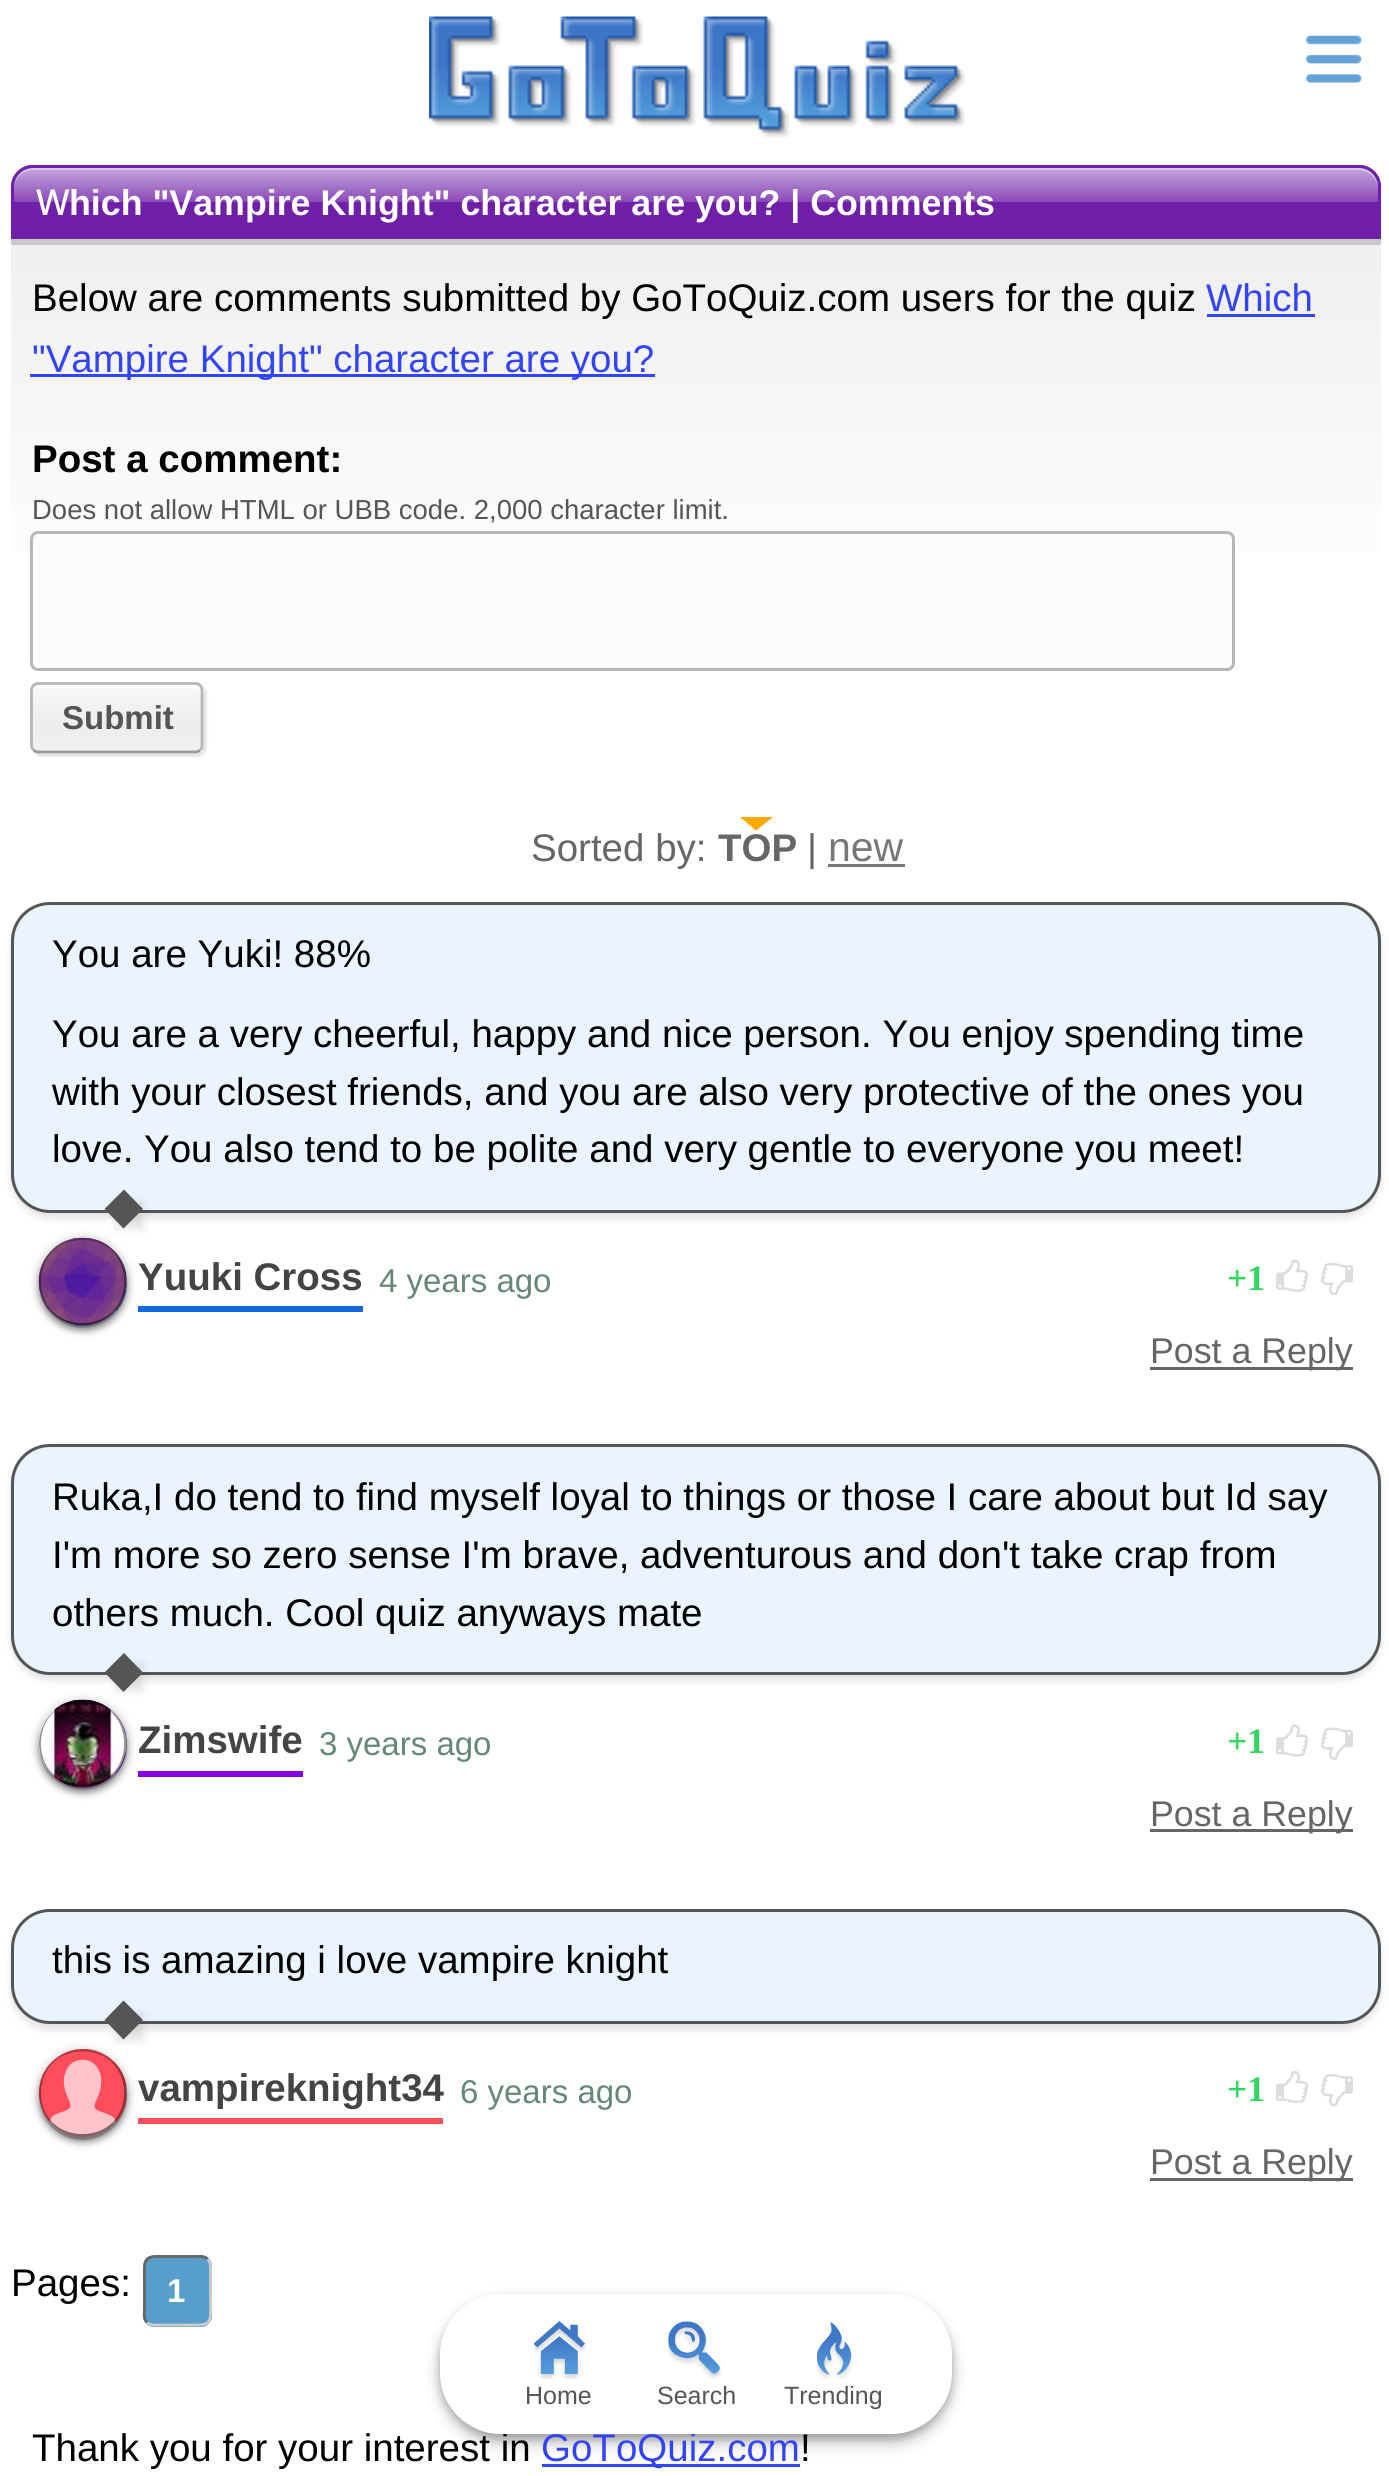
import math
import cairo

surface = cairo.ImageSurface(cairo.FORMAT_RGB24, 1389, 2476)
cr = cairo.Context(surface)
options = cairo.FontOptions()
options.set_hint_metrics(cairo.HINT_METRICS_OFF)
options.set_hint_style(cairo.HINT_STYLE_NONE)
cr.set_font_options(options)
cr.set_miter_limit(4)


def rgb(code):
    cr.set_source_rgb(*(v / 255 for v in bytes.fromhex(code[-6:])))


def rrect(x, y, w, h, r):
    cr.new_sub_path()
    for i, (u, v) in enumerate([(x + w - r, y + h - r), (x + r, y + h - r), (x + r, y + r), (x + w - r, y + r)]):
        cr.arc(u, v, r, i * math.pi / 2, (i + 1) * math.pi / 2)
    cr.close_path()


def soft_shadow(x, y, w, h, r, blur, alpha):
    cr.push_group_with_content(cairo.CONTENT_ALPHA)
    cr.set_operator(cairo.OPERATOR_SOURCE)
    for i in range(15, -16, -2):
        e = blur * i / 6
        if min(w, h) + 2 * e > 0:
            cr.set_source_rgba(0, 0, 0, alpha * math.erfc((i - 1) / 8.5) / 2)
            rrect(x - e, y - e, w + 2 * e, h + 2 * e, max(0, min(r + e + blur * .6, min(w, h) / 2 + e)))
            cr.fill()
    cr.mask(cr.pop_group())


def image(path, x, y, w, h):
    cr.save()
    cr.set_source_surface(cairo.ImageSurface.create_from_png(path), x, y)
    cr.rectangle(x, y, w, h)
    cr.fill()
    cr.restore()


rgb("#ffffff")
cr.paint()
image("img/1.png", 429, 16, 536, 122)
image("img/2.png", 1306, 35, 56, 48)
gradient = cairo.LinearGradient(696, 165, 696, 2390)
gradient.add_color_stop_rgba(0, 1, 1, 1, 1)
gradient.add_color_stop_rgba(0.02, 0.933, 0.933, 0.933, 1)
gradient.add_color_stop_rgba(0.2, 1, 1, 1, 1)
cr.set_source(gradient)
cr.rectangle(11, 172, 1370, 379)
cr.fill()
rgb("#c8c8c8")
cr.new_path()
cr.move_to(11, 239)
cr.line_to(11, 245)
cr.line_to(1381, 245)
cr.line_to(1381, 193)
cr.line_to(1380, 188)
cr.line_to(1380, 239)
cr.close_path()
cr.fill()
rgb("#6f1fa8")
cr.new_path()
cr.move_to(33, 165)
cr.line_to(1359, 165)
cr.curve_to(1371, 165, 1381, 175, 1381, 187)
cr.line_to(1381, 239)
cr.line_to(11, 239)
cr.line_to(11, 187)
cr.curve_to(11, 175, 21, 165, 33, 165)
cr.close_path()
cr.fill()
cr.save()
cr.new_path()
cr.move_to(33, 165)
cr.line_to(1359, 165)
cr.curve_to(1371, 165, 1381, 175, 1381, 187)
cr.line_to(1381, 239)
cr.line_to(11, 239)
cr.line_to(11, 187)
cr.curve_to(11, 175, 21, 165, 33, 165)
cr.close_path()
cr.clip()
gradient = cairo.LinearGradient(696, 237, 696, 168)
gradient.add_color_stop_rgba(0.5, 1, 1, 1, 0)
gradient.add_color_stop_rgba(0.5, 1, 1, 1, 0.18)
gradient.add_color_stop_rgba(1, 1, 1, 1, 0.6)
cr.set_source(gradient)
cr.rectangle(11, 168, 1370, 34)
cr.fill()
cr.restore()
cr.set_source_rgba(1, 1, 1, 0.4)
cr.new_path()
cr.move_to(33, 170)
cr.line_to(1358, 170)
cr.curve_to(1369, 170, 1378, 179, 1378, 190)
cr.line_to(1378, 187)
cr.curve_to(1378, 177, 1369, 168, 1359, 168)
cr.line_to(33, 168)
cr.curve_to(23, 168, 14, 177, 14, 187)
cr.line_to(14, 190)
cr.curve_to(14, 179, 22, 170, 33, 170)
cr.close_path()
cr.fill()
cr.new_path()
cr.move_to(33, 166.5)
cr.line_to(1359, 166.5)
cr.curve_to(1370.5, 166.5, 1379.5, 175.5, 1379.5, 187)
cr.line_to(1379.5, 237.5)
cr.line_to(12.5, 237.5)
cr.line_to(12.5, 187)
cr.curve_to(12.5, 175.5, 21.5, 166.5, 33, 166.5)
cr.close_path()
rgb("#6f1fa8")
cr.set_line_width(3)
cr.stroke()
rgb("#3344ff")
cr.rectangle(1207, 314, 108, 3)
cr.fill()
cr.rectangle(30, 374, 625, 3)
cr.fill()
rgb("#fcfcfc")
rrect(31.5, 532.5, 1202, 137, 6.5)
cr.fill_preserve()
rgb("#b7b7b9")
cr.stroke()
rgb("#000000")
soft_shadow(33, 685, 173, 71, 8, 1.5, 0.14)
cr.save()
rrect(30, 682, 174, 72, 8)
cr.clip()
gradient = cairo.LinearGradient(117, 619, 117, 685)
gradient.add_color_stop_rgba(0, 0.973, 0.973, 0.973, 1)
gradient.add_color_stop_rgba(0.5, 0.933, 0.933, 0.933, 1)
gradient.add_color_stop_rgba(0.75, 0.933, 0.933, 0.933, 1)
gradient.add_color_stop_rgba(1, 0.945, 0.945, 0.945, 1)
cr.set_source(gradient)
cr.rectangle(30, 682, 174, 3)
cr.fill()
gradient = cairo.LinearGradient(117, 685, 117, 751)
gradient.add_color_stop_rgba(0, 0.973, 0.973, 0.973, 1)
gradient.add_color_stop_rgba(0.5, 0.933, 0.933, 0.933, 1)
gradient.add_color_stop_rgba(0.75, 0.933, 0.933, 0.933, 1)
gradient.add_color_stop_rgba(1, 0.945, 0.945, 0.945, 1)
cr.set_source(gradient)
cr.rectangle(30, 685, 174, 66)
cr.fill()
gradient = cairo.LinearGradient(117, 751, 117, 817)
gradient.add_color_stop_rgba(0, 0.973, 0.973, 0.973, 1)
gradient.add_color_stop_rgba(0.5, 0.933, 0.933, 0.933, 1)
gradient.add_color_stop_rgba(0.75, 0.933, 0.933, 0.933, 1)
gradient.add_color_stop_rgba(1, 0.945, 0.945, 0.945, 1)
cr.set_source(gradient)
cr.rectangle(30, 751, 174, 3)
cr.fill()
cr.restore()
rgb("#ffffff")
cr.new_path()
cr.move_to(38, 688)
cr.line_to(195, 688)
cr.curve_to(198, 688, 201, 690, 201, 693)
cr.line_to(201, 691)
cr.curve_to(201, 688, 198, 685, 195, 685)
cr.line_to(39, 685)
cr.curve_to(36, 685, 33, 688, 33, 691)
cr.line_to(33, 693)
cr.curve_to(33, 690, 35, 688, 38, 688)
cr.close_path()
cr.fill()
cr.new_path()
cr.move_to(200, 750)
cr.curve_to(199, 751.5, 197, 752, 195, 752)
cr.line_to(38.5, 752)
cr.curve_to(36.5, 752, 35, 751.5, 33.5, 750)
rgb("#999999")
cr.set_line_width(2.8)
cr.stroke()
cr.new_path()
cr.move_to(33.5, 750)
cr.curve_to(32.5, 749, 31.5, 747, 31.5, 745)
cr.line_to(31.5, 690)
cr.curve_to(31.5, 688.5, 32.5, 686.5, 33.5, 685.5)
cr.curve_to(35, 684, 36.5, 683.5, 38.5, 683.5)
cr.line_to(195, 683.5)
cr.curve_to(197, 683.5, 199, 684, 200, 685.5)
cr.curve_to(201.5, 686.5, 202, 688.5, 202, 690)
cr.line_to(202, 745)
cr.curve_to(202, 747, 201.5, 749, 200, 750)
rgb("#b7b7b9")
cr.stroke()
rgb("#ffaa00")
cr.new_path()
cr.move_to(740, 817)
cr.line_to(773, 817)
cr.line_to(756, 830.5)
cr.close_path()
cr.fill()
rgb("#777777")
cr.rectangle(828, 864, 77, 3)
cr.fill()
rgb("#000000")
soft_shadow(11, 908, 1370, 310, 39, 4, 0.12)
rgb("#eaf4ff")
rrect(12.5, 903.5, 1367, 308, 37.5)
cr.fill_preserve()
rgb("#555555")
cr.set_line_width(3)
cr.stroke()
rgb("#1569e0")
cr.rectangle(138, 1306, 225, 6)
cr.fill()
rgb("#000000")
soft_shadow(39, 1240, 88, 88, 44, 5.5, 0.3)
soft_shadow(39, 1243, 88, 88, 44, 3, 0.3)
cr.set_source_rgba(0, 0, 0, 0.2)
cr.new_path()
cr.move_to(40, 1291)
cr.curve_to(41, 1302, 47, 1311, 54, 1317)
cr.curve_to(87, 1345, 135, 1315, 126, 1274)
cr.curve_to(127, 1282, 126, 1291, 123, 1299)
cr.curve_to(107, 1338, 49, 1332, 40, 1291)
cr.close_path()
cr.fill()
image("img/3.png", 39, 1238, 87, 88)
image("img/4.png", 38, 1237, 89, 89)
cr.save()
rrect(39, 1238, 88, 88, 44)
cr.clip()
cr.new_path()
cr.move_to(51.5, 1250.5)
cr.curve_to(67.5, 1234.5, 97.5, 1234.5, 113.5, 1250.5)
cr.set_source_rgba(0, 0, 0, 0.3)
cr.set_line_width(2.8)
cr.stroke()
cr.restore()
rgb("#000000")
soft_shadow(116, 1202, 27, 27, 0, 4, 0.11)
rgb("#555555")
cr.new_path()
cr.move_to(124, 1189.5)
cr.line_to(143, 1209)
cr.line_to(123.5, 1228.5)
cr.line_to(104.5, 1209)
cr.close_path()
cr.fill()
cr.save()
rrect(39, 1238, 88, 88, 44)
cr.clip()
cr.new_path()
cr.move_to(113.5, 1250.5)
cr.curve_to(129.5, 1266.5, 129.5, 1296.5, 113.5, 1312.5)
cr.set_source_rgba(0, 0, 0, 0.4)
cr.set_line_width(2.8)
cr.stroke()
cr.new_path()
cr.move_to(113.5, 1312.5)
cr.curve_to(97.5, 1328.5, 67.5, 1328.5, 51.5, 1312.5)
cr.set_source_rgba(0, 0, 0, 0.5)
cr.stroke()
cr.new_path()
cr.move_to(51.5, 1312.5)
cr.curve_to(35.5, 1296.5, 35.5, 1266.5, 51.5, 1250.5)
cr.set_source_rgba(0, 0, 0, 0.4)
cr.stroke()
cr.restore()
image("img/5.png", 1276, 1260, 33, 32)
image("img/6.png", 1320, 1262, 33, 33)
rgb("#666666")
cr.rectangle(1150, 1367, 203, 3)
cr.fill()
rgb("#000000")
soft_shadow(11, 1449, 1370, 231, 39, 4, 0.12)
rgb("#eaf4ff")
rrect(12.5, 1445.5, 1367, 228, 37.5)
cr.fill_preserve()
rgb("#555555")
cr.stroke()
rgb("#8600e6")
cr.rectangle(138, 1771, 165, 6)
cr.fill()
rgb("#000000")
soft_shadow(39, 1702, 88, 88, 44, 5.5, 0.3)
soft_shadow(39, 1705, 88, 88, 44, 3, 0.3)
cr.set_source_rgba(0, 0, 0, 0.2)
cr.new_path()
cr.move_to(40, 1753)
cr.curve_to(41, 1764, 47, 1773, 54, 1779)
cr.curve_to(87, 1807, 135, 1777, 126, 1736)
cr.curve_to(127, 1744, 126, 1753, 123, 1761)
cr.curve_to(107, 1800, 49, 1794, 40, 1753)
cr.close_path()
cr.fill()
image("img/7.png", 39, 1700, 87, 88)
image("img/8.png", 38, 1699, 89, 89)
cr.save()
rrect(39, 1700, 88, 88, 44)
cr.clip()
cr.new_path()
cr.move_to(51.5, 1712.5)
cr.curve_to(67.5, 1696.5, 97.5, 1696.5, 113.5, 1712.5)
cr.set_source_rgba(0, 0, 0, 0.3)
cr.set_line_width(2.8)
cr.stroke()
cr.restore()
rgb("#000000")
soft_shadow(116, 1664, 27, 27, 0, 4, 0.11)
rgb("#555555")
cr.new_path()
cr.move_to(124, 1653)
cr.line_to(143, 1672.5)
cr.line_to(123.5, 1692)
cr.line_to(104.5, 1672.5)
cr.close_path()
cr.fill()
cr.save()
rrect(39, 1700, 88, 88, 44)
cr.clip()
cr.new_path()
cr.move_to(113.5, 1712.5)
cr.curve_to(129.5, 1728.5, 129.5, 1758.5, 113.5, 1774.5)
cr.set_source_rgba(0, 0, 0, 0.4)
cr.set_line_width(2.8)
cr.stroke()
cr.new_path()
cr.move_to(113.5, 1774.5)
cr.curve_to(97.5, 1790.5, 67.5, 1790.5, 51.5, 1774.5)
cr.set_source_rgba(0, 0, 0, 0.5)
cr.stroke()
cr.new_path()
cr.move_to(51.5, 1774.5)
cr.curve_to(35.5, 1758.5, 35.5, 1728.5, 51.5, 1712.5)
cr.set_source_rgba(0, 0, 0, 0.4)
cr.stroke()
cr.restore()
image("img/9.png", 1276, 1724, 33, 33)
image("img/10.png", 1320, 1727, 33, 33)
rgb("#666666")
cr.rectangle(1150, 1829, 203, 3)
cr.fill()
rgb("#000000")
soft_shadow(11, 1914, 1370, 116, 39, 4, 0.12)
rgb("#eaf4ff")
rrect(12.5, 1910.5, 1367, 112, 37.5)
cr.fill_preserve()
rgb("#555555")
cr.stroke()
rgb("#ff4d5b")
cr.rectangle(138, 2118, 305, 6)
cr.fill()
rgb("#000000")
soft_shadow(39, 2052, 88, 88, 44, 5.5, 0.3)
soft_shadow(39, 2054, 88, 88, 44, 3, 0.3)
cr.set_source_rgba(0, 0, 0, 0.2)
cr.new_path()
cr.move_to(39, 2101)
cr.curve_to(41, 2112, 46, 2122, 54, 2129)
cr.curve_to(85, 2157, 134, 2128, 126, 2088)
cr.curve_to(127, 2098, 125, 2109, 119, 2117)
cr.curve_to(97, 2150, 47, 2139, 39, 2101)
cr.close_path()
cr.fill()
image("img/11.png", 39, 2049, 87, 88)
cr.save()
rrect(39, 2049, 88, 88, 44)
cr.clip()
cr.new_path()
cr.move_to(51.5, 2062)
cr.curve_to(67.5, 2046, 97.5, 2046, 113.5, 2062)
cr.set_source_rgba(0, 0, 0, 0.3)
cr.set_line_width(2.8)
cr.stroke()
cr.restore()
rgb("#000000")
soft_shadow(116, 2013, 27, 28, 0, 4, 0.11)
rgb("#555555")
cr.new_path()
cr.move_to(123.5, 2000.5)
cr.line_to(143, 2020)
cr.line_to(123.5, 2039.5)
cr.line_to(104.5, 2020)
cr.close_path()
cr.fill()
cr.save()
rrect(39, 2049, 88, 88, 44)
cr.clip()
cr.new_path()
cr.move_to(113.5, 2062)
cr.curve_to(129.5, 2078, 129.5, 2107.5, 113.5, 2123.5)
cr.set_source_rgba(0, 0, 0, 0.4)
cr.set_line_width(2.8)
cr.stroke()
cr.new_path()
cr.move_to(113.5, 2123.5)
cr.curve_to(97.5, 2139.5, 67.5, 2139.5, 51.5, 2123.5)
cr.set_source_rgba(0, 0, 0, 0.5)
cr.stroke()
cr.new_path()
cr.move_to(51.5, 2123.5)
cr.curve_to(35.5, 2107.5, 35.5, 2078, 51.5, 2062)
cr.set_source_rgba(0, 0, 0, 0.4)
cr.stroke()
cr.restore()
image("img/12.png", 1276, 2071, 33, 33)
image("img/13.png", 1320, 2074, 33, 33)
rgb("#666666")
cr.rectangle(1150, 2178, 203, 3)
cr.fill()
rgb("#589ecc")
rrect(143, 2255, 69, 72, 11)
cr.fill()
cr.new_path()
cr.move_to(207.5, 2259)
cr.curve_to(211.5, 2263, 210.5, 2269, 210.5, 2274)
cr.line_to(210.5, 2291)
cr.curve_to(210.5, 2328.5, 215, 2325, 177.5, 2325)
cr.line_to(162, 2325)
cr.curve_to(157, 2325, 151, 2326, 147, 2322.5)
rgb("#cccccc")
cr.set_line_width(2.8)
cr.stroke()
cr.new_path()
cr.move_to(147, 2322.5)
cr.curve_to(143, 2318.5, 144.5, 2312.5, 144.5, 2307)
cr.line_to(144.5, 2291)
cr.curve_to(144.5, 2253, 140, 2256.5, 177.5, 2256.5)
cr.line_to(193, 2256.5)
cr.curve_to(198, 2256.5, 203.5, 2255.5, 207.5, 2259)
rgb("#666666")
cr.stroke()
rgb("#3344ff")
cr.rectangle(542, 2464, 258, 3)
cr.fill()
rgb("#000000")
soft_shadow(440, 2299, 512, 140, 61, 4, 0.16)
soft_shadow(440, 2302, 512, 140, 61, 8, 0.28)
cr.select_font_face("Noto Sans Medium")
cr.set_font_size(35.75)
rgb("#ffffff")
cr.move_to(36, 215)
cr.show_text("W")
cr.select_font_face("Liberation Sans", cairo.FONT_SLANT_NORMAL, cairo.FONT_WEIGHT_BOLD)
cr.move_to(69, 215)
cr.show_text("hich \"Vampire Knight\" character are you? | Comments")
cr.select_font_face("Liberation Sans")
cr.set_font_size(38.5)
rgb("#000000")
cr.move_to(32, 311)
cr.show_text("Below are comments submitted by GoToQuiz.com users for the quiz")
rgb("#3344ff")
cr.move_to(1206, 311)
cr.show_text("Which")
cr.move_to(32, 372)
cr.show_text("\"Vampire Knight\" character are you?")
cr.select_font_face("Liberation Sans", cairo.FONT_SLANT_NORMAL, cairo.FONT_WEIGHT_BOLD)
rgb("#000000")
cr.move_to(32, 472)
cr.show_text("Post a comment:")
cr.select_font_face("Liberation Sans")
cr.set_font_size(27.5)
rgb("#555555")
cr.move_to(32, 519)
cr.show_text("Does not allow HTML or UBB code. 2,000 character limit.")
cr.select_font_face("Liberation Sans", cairo.FONT_SLANT_NORMAL, cairo.FONT_WEIGHT_BOLD)
cr.set_font_size(33)
cr.move_to(62, 729)
cr.show_text("Submit")
cr.select_font_face("Liberation Sans")
cr.set_font_size(38.5)
rgb("#666666")
cr.move_to(531, 861)
cr.show_text("Sorted by:")
cr.select_font_face("Liberation Sans", cairo.FONT_SLANT_NORMAL, cairo.FONT_WEIGHT_BOLD)
cr.move_to(718, 861)
cr.show_text("TOP")
cr.select_font_face("Liberation Sans")
cr.move_to(807, 861)
cr.show_text("|")
cr.set_font_size(41)
rgb("#777777")
cr.move_to(828, 861)
cr.show_text("new")
cr.set_font_size(38.5)
rgb("#000000")
for x, y, s in [
    (52, 967, "You are Yuki! 88%"),
    (52, 1047, "You are a very cheerful, happy and nice person. You enjoy spending time"),
    (52, 1105, "with your closest friends, and you are also very protective of the ones you"),
    (52, 1162, "love. You also tend to be polite and very gentle to everyone you meet!"),
]:
    cr.move_to(x, y)
    cr.show_text(s)
cr.select_font_face("Liberation Sans", cairo.FONT_SLANT_NORMAL, cairo.FONT_WEIGHT_BOLD)
rgb("#444444")
cr.move_to(138, 1290)
cr.show_text("Yuuki Cross")
cr.select_font_face("Liberation Sans")
cr.set_font_size(33)
rgb("#668877")
cr.move_to(379, 1292)
cr.show_text("4 years ago")
cr.select_font_face("Liberation Serif", cairo.FONT_SLANT_NORMAL, cairo.FONT_WEIGHT_BOLD)
cr.set_font_size(35.75)
rgb("#33d660")
cr.move_to(1227, 1290)
cr.show_text("+1")
cr.select_font_face("Liberation Sans")
rgb("#666666")
cr.move_to(1150, 1363)
cr.show_text("Post a Reply")
cr.set_font_size(38.5)
rgb("#000000")
for x, y, s in [
    (52, 1510, "Ruka,I do tend to find myself loyal to things or those I care about but Id say"),
    (52, 1568, "I'm more so zero sense I'm brave, adventurous and don't take crap from"),
    (52, 1626, "others much. Cool quiz anyways mate"),
]:
    cr.move_to(x, y)
    cr.show_text(s)
cr.select_font_face("Liberation Sans", cairo.FONT_SLANT_NORMAL, cairo.FONT_WEIGHT_BOLD)
rgb("#444444")
cr.move_to(138, 1753)
cr.show_text("Zimswife")
cr.select_font_face("Liberation Sans")
cr.set_font_size(33)
rgb("#668877")
cr.move_to(319, 1755)
cr.show_text("3 years ago")
cr.select_font_face("Liberation Serif", cairo.FONT_SLANT_NORMAL, cairo.FONT_WEIGHT_BOLD)
cr.set_font_size(35.75)
rgb("#33d660")
cr.move_to(1227, 1753)
cr.show_text("+1")
cr.select_font_face("Liberation Sans")
rgb("#666666")
cr.move_to(1150, 1826)
cr.show_text("Post a Reply")
cr.set_font_size(38.5)
rgb("#000000")
cr.move_to(52, 1973)
cr.show_text("this is amazing i love vampire knight")
cr.select_font_face("Liberation Sans", cairo.FONT_SLANT_NORMAL, cairo.FONT_WEIGHT_BOLD)
rgb("#444444")
cr.move_to(138, 2101)
cr.show_text("vampireknight34")
cr.select_font_face("Liberation Sans")
cr.set_font_size(33)
rgb("#668877")
cr.move_to(460, 2103)
cr.show_text("6 years ago")
cr.select_font_face("Liberation Serif", cairo.FONT_SLANT_NORMAL, cairo.FONT_WEIGHT_BOLD)
cr.set_font_size(35.75)
rgb("#33d660")
cr.move_to(1227, 2101)
cr.show_text("+1")
cr.select_font_face("Liberation Sans")
rgb("#666666")
cr.move_to(1150, 2174)
cr.show_text("Post a Reply")
cr.set_font_size(38.5)
rgb("#000000")
cr.move_to(11, 2296)
cr.show_text("Pages:")
cr.select_font_face("Liberation Sans", cairo.FONT_SLANT_NORMAL, cairo.FONT_WEIGHT_BOLD)
cr.set_font_size(33)
rgb("#ffffff")
cr.move_to(167, 2302)
cr.show_text("1")
cr.select_font_face("Liberation Sans")
cr.set_font_size(38.5)
rgb("#000000")
cr.move_to(32, 2461)
cr.show_text("Thank you for your interest in")
rgb("#3344ff")
cr.move_to(541, 2461)
cr.show_text("GoToQuiz.com")
rgb("#000000")
cr.move_to(800, 2461)
cr.show_text("!")
rgb("#ffffff")
rrect(440, 2294, 512, 140, 61)
cr.fill()
image("img/14.png", 534, 2321, 52, 59)
cr.set_font_size(25)
rgb("#555555")
cr.move_to(525, 2404)
cr.show_text("Home")
image("img/15.png", 668, 2321, 54, 58)
cr.move_to(657, 2404)
cr.show_text("Search")
image("img/16.png", 817, 2322, 36, 58)
cr.move_to(784, 2404)
cr.show_text("Trending")
surface.write_to_png("page.png")
